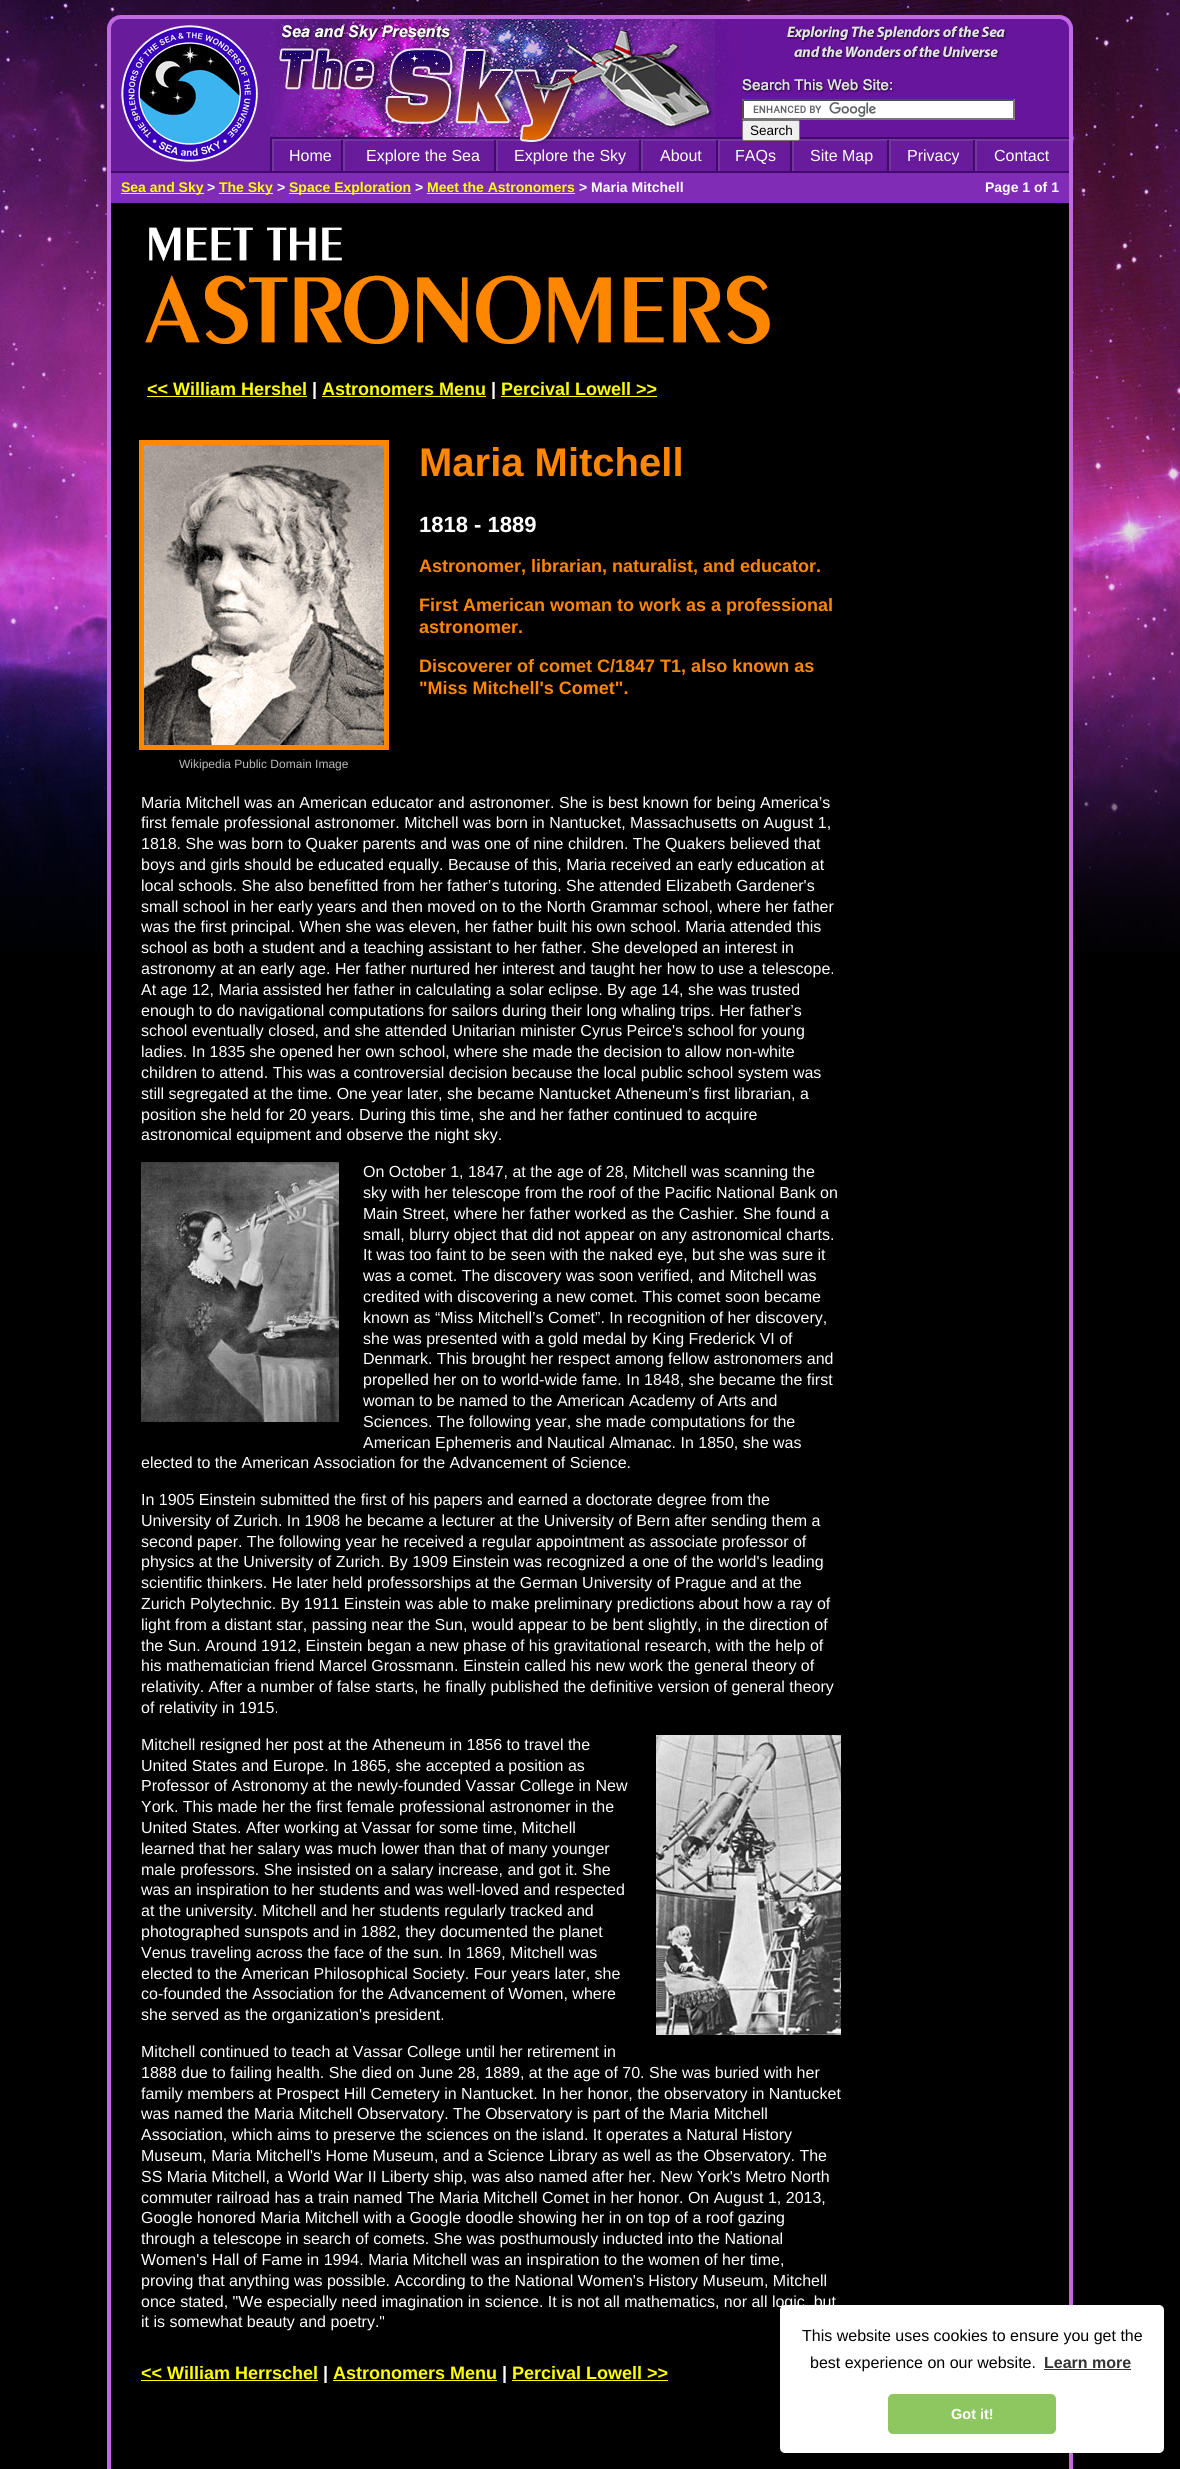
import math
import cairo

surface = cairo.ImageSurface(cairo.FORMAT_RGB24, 1180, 2469)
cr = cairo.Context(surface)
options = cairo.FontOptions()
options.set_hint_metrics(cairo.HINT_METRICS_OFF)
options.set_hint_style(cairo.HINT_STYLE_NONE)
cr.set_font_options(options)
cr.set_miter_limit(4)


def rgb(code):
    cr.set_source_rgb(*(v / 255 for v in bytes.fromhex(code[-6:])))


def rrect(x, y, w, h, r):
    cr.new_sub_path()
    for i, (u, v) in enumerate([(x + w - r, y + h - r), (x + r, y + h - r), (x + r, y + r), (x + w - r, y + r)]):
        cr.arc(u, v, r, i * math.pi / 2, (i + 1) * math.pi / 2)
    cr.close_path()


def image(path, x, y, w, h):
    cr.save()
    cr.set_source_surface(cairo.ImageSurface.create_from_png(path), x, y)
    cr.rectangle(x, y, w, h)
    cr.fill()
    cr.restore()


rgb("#000000")
cr.paint()
image("img/1.png", 0, 0, 1180, 952)
image("img/2.png", 107, 15, 167, 122)
image("img/3.png", 274, 15, 441, 122)
image("img/4.png", 715, 15, 358, 122)
rgb("#ffffff")
cr.rectangle(742, 99, 273, 21)
cr.fill()
image("img/5.png", 753, 102, 123, 15)
rgb("#4f4f4f")
cr.new_path()
cr.move_to(742, 99)
cr.line_to(1015, 99)
cr.line_to(1013, 101)
cr.line_to(744, 101)
cr.close_path()
cr.fill()
rgb("#767676")
cr.new_path()
cr.move_to(1015, 99)
cr.line_to(1015, 120)
cr.line_to(1013, 118)
cr.line_to(1013, 101)
cr.close_path()
cr.fill()
cr.new_path()
cr.move_to(1015, 120)
cr.line_to(742, 120)
cr.line_to(744, 118)
cr.line_to(1013, 118)
cr.close_path()
cr.fill()
rgb("#4f4f4f")
cr.new_path()
cr.move_to(742, 120)
cr.line_to(742, 99)
cr.line_to(744, 101)
cr.line_to(744, 118)
cr.close_path()
cr.fill()
image("img/6.png", 107, 137, 966, 36)
rgb("#efefef")
rrect(742.5, 120.5, 57, 20, 1.5)
cr.fill_preserve()
rgb("#767676")
cr.set_line_width(1)
cr.stroke()
image("img/7.png", 107, 173, 966, 2296)
for x, y, w, h, color in [
    (111, 173, 958, 30, "#812cb7"),
    (121, 193, 83, 1, "#ffff00"),
    (219, 193, 54, 1, "#ffff00"),
    (289, 193, 122, 1, "#ffff00"),
    (427, 193, 148, 1, "#ffff00"),
]:
    rgb(color)
    cr.rectangle(x, y, w, h)
    cr.fill()
image("img/8.png", 145, 227, 625, 118)
for x, y, w, h, color in [
    (147, 396, 160, 1, "#ffff00"),
    (322, 396, 164, 1, "#ffff00"),
    (501, 396, 156, 1, "#ffff00"),
]:
    rgb(color)
    cr.rectangle(x, y, w, h)
    cr.fill()
cr.rectangle(141.5, 442.5, 245, 305)
rgb("#ff8700")
cr.set_line_width(5)
cr.stroke()
image("img/9.png", 144, 445, 240, 300)
image("img/10.png", 141, 1162, 198, 260)
image("img/11.png", 656, 1735, 185, 300)
for x, y, w, h, color in [
    (141, 2380, 177, 1, "#ffff00"),
    (333, 2380, 164, 1, "#ffff00"),
    (512, 2380, 156, 1, "#ffff00"),
]:
    rgb(color)
    cr.rectangle(x, y, w, h)
    cr.fill()
rgb("#ffffff")
rrect(780, 2305, 384, 148, 5)
cr.fill()
rgb("#333333")
cr.rectangle(1044, 2369, 87, 1)
cr.fill()
rgb("#8ec760")
rrect(888, 2394, 168, 40, 5)
cr.fill()
cr.select_font_face("Liberation Sans")
cr.set_font_size(13.5)
rgb("#000000")
cr.move_to(750, 135)
cr.show_text("Search")
cr.set_font_size(16)
rgb("#ffffff")
for x, y, s in [
    (289, 161, "Home"),
    (366, 161, "Explore the Sea"),
    (514, 161, "Explore the Sky"),
    (660, 161, "About"),
    (735, 161, "FAQs"),
    (810, 161, "Site Map"),
    (907, 161, "Privacy"),
    (994, 161, "Contact"),
]:
    cr.move_to(x, y)
    cr.show_text(s)
cr.select_font_face("Liberation Sans", cairo.FONT_SLANT_NORMAL, cairo.FONT_WEIGHT_BOLD)
cr.set_font_size(14)
rgb("#ffff00")
cr.move_to(121, 192)
cr.show_text("Sea and Sky")
rgb("#ffffff")
cr.move_to(207, 192)
cr.show_text(">")
rgb("#ffff00")
cr.move_to(219, 192)
cr.show_text("The Sky")
rgb("#ffffff")
cr.move_to(277, 192)
cr.show_text(">")
rgb("#ffff00")
cr.move_to(289, 192)
cr.show_text("Space Exploration")
rgb("#ffffff")
cr.move_to(415, 192)
cr.show_text(">")
rgb("#ffff00")
cr.move_to(427, 192)
cr.show_text("Meet the Astronomers")
rgb("#ffffff")
cr.move_to(579, 192)
cr.show_text("> Maria Mitchell")
cr.move_to(985, 192)
cr.show_text("Page 1 of 1")
cr.set_font_size(18)
rgb("#ffff00")
cr.move_to(147, 395)
cr.show_text("<< William Hershel")
rgb("#ffffff")
cr.move_to(312, 395)
cr.show_text("|")
rgb("#ffff00")
cr.move_to(322, 395)
cr.show_text("Astronomers Menu")
rgb("#ffffff")
cr.move_to(491, 395)
cr.show_text("|")
rgb("#ffff00")
cr.move_to(501, 395)
cr.show_text("Percival Lowell >>")
cr.set_font_size(40)
rgb("#ff8700")
cr.move_to(419, 476)
cr.show_text("Maria Mitchell")
cr.set_font_size(22)
rgb("#ffffff")
cr.move_to(419, 532)
cr.show_text("1818 - 1889")
cr.set_font_size(18)
rgb("#ff8700")
for x, y, s in [
    (419, 572, "Astronomer, librarian, naturalist, and educator."),
    (419, 611, "First American woman to work as a professional"),
    (419, 633, "astronomer."),
    (419, 672, "Discoverer of comet C/1847 T1, also known as"),
    (419, 694, "\"Miss Mitchell's Comet\"."),
]:
    cr.move_to(x, y)
    cr.show_text(s)
cr.select_font_face("Liberation Sans")
cr.set_font_size(12)
rgb("#bbbbbb")
cr.move_to(179, 768)
cr.show_text("Wikipedia Public Domain Image")
cr.set_font_size(16)
rgb("#ffffff")
for x, y, s in [
    (141, 808, "Maria Mitchell was an American educator and astronomer. She is best known for being America’s"),
    (141, 828, "first female professional astronomer. Mitchell was born in Nantucket, Massachusetts on August 1,"),
    (141, 849, "1818. She was born to Quaker parents and was one of nine children. The Quakers believed that"),
    (141, 870, "boys and girls should be educated equally. Because of this, Maria received an early education at"),
    (141, 891, "local schools. She also benefitted from her father’s tutoring. She attended Elizabeth Gardener's"),
    (141, 912, "small school in her early years and then moved on to the North Grammar school, where her father"),
    (141, 932, "was the first principal. When she was eleven, her father built his own school. Maria attended this"),
    (141, 953, "school as both a student and a teaching assistant to her father. She developed an interest in"),
    (141, 974, "astronomy at an early age. Her father nurtured her interest and taught her how to use a telescope."),
    (141, 995, "At age 12, Maria assisted her father in calculating a solar eclipse. By age 14, she was trusted"),
    (141, 1016, "enough to do navigational computations for sailors during their long whaling trips. Her father’s"),
    (141, 1036, "school eventually closed, and she attended Unitarian minister Cyrus Peirce's school for young"),
    (141, 1057, "ladies. In 1835 she opened her own school, where she made the decision to allow non-white"),
    (141, 1078, "children to attend. This was a controversial decision because the local public school system was"),
    (141, 1099, "still segregated at the time. One year later, she became Nantucket Atheneum’s first librarian, a"),
    (141, 1120, "position she held for 20 years. During this time, she and her father continued to acquire"),
    (141, 1140, "astronomical equipment and observe the night sky."),
    (363, 1177, "On October 1, 1847, at the age of 28, Mitchell was scanning the"),
    (363, 1198, "sky with her telescope from the roof of the Pacific National Bank on"),
    (363, 1219, "Main Street, where her father worked as the Cashier. She found a"),
    (363, 1240, "small, blurry object that did not appear on any astronomical charts."),
    (363, 1260, "It was too faint to be seen with the naked eye, but she was sure it"),
    (363, 1281, "was a comet. The discovery was soon verified, and Mitchell was"),
    (363, 1302, "credited with discovering a new comet. This comet soon became"),
    (363, 1323, "known as “Miss Mitchell’s Comet”. In recognition of her discovery,"),
    (363, 1344, "she was presented with a gold medal by King Frederick VI of"),
    (363, 1364, "Denmark. This brought her respect among fellow astronomers and"),
    (363, 1385, "propelled her on to world-wide fame. In 1848, she became the first"),
    (363, 1406, "woman to be named to the American Academy of Arts and"),
    (363, 1427, "Sciences. The following year, she made computations for the"),
    (363, 1448, "American Ephemeris and Nautical Almanac. In 1850, she was"),
    (141, 1468, "elected to the American Association for the Advancement of Science."),
    (141, 1505, "In 1905 Einstein submitted the first of his papers and earned a doctorate degree from the"),
    (141, 1526, "University of Zurich. In 1908 he became a lecturer at the University of Bern after sending them a"),
    (141, 1547, "second paper. The following year he received a regular appointment as associate professor of"),
    (141, 1567, "physics at the University of Zurich. By 1909 Einstein was recognized a one of the world's leading"),
    (141, 1588, "scientific thinkers. He later held professorships at the German University of Prague and at the"),
    (141, 1609, "Zurich Polytechnic. By 1911 Einstein was able to make preliminary predictions about how a ray of"),
    (141, 1630, "light from a distant star, passing near the Sun, would appear to be bent slightly, in the direction of"),
    (141, 1651, "the Sun. Around 1912, Einstein began a new phase of his gravitational research, with the help of"),
    (141, 1671, "his mathematician friend Marcel Grossmann. Einstein called his new work the general theory of"),
    (141, 1692, "relativity. After a number of false starts, he finally published the definitive version of general theory"),
    (141, 1713, "of relativity in 1915."),
    (141, 1750, "Mitchell resigned her post at the Atheneum in 1856 to travel the"),
    (141, 1771, "United States and Europe. In 1865, she accepted a position as"),
    (141, 1791, "Professor of Astronomy at the newly-founded Vassar College in New"),
    (141, 1812, "York. This made her the first female professional astronomer in the"),
    (141, 1833, "United States. After working at Vassar for some time, Mitchell"),
    (141, 1854, "learned that her salary was much lower than that of many younger"),
    (141, 1875, "male professors. She insisted on a salary increase, and got it. She"),
    (141, 1895, "was an inspiration to her students and was well-loved and respected"),
    (141, 1916, "at the university. Mitchell and her students regularly tracked and"),
    (141, 1937, "photographed sunspots and in 1882, they documented the planet"),
    (141, 1958, "Venus traveling across the face of the sun. In 1869, Mitchell was"),
    (141, 1979, "elected to the American Philosophical Society. Four years later, she"),
    (141, 1999, "co-founded the Association for the Advancement of Women, where"),
    (141, 2020, "she served as the organization's president."),
    (141, 2057, "Mitchell continued to teach at Vassar College until her retirement in"),
    (141, 2078, "1888 due to failing health. She died on June 28, 1889, at the age of 70. She was buried with her"),
    (141, 2099, "family members at Prospect Hill Cemetery in Nantucket. In her honor, the observatory in Nantucket"),
    (141, 2119, "was named the Maria Mitchell Observatory. The Observatory is part of the Maria Mitchell"),
    (141, 2140, "Association, which aims to preserve the sciences on the island. It operates a Natural History"),
    (141, 2161, "Museum, Maria Mitchell's Home Museum, and a Science Library as well as the Observatory. The"),
    (141, 2182, "SS Maria Mitchell, a World War II Liberty ship, was also named after her. New York's Metro North"),
    (141, 2203, "commuter railroad has a train named The Maria Mitchell Comet in her honor. On August 1, 2013,"),
    (141, 2223, "Google honored Maria Mitchell with a Google doodle showing her in on top of a roof gazing"),
    (141, 2244, "through a telescope in search of comets. She was posthumously inducted into the National"),
    (141, 2265, "Women's Hall of Fame in 1994. Maria Mitchell was an inspiration to the women of her time,"),
    (141, 2286, "proving that anything was possible. According to the National Women's History Museum, Mitchell"),
    (141, 2307, "once stated, \"We especially need imagination in science. It is not all mathematics, nor all logic, but"),
    (141, 2327, "it is somewhat beauty and poetry.\""),
]:
    cr.move_to(x, y)
    cr.show_text(s)
cr.select_font_face("Liberation Sans", cairo.FONT_SLANT_NORMAL, cairo.FONT_WEIGHT_BOLD)
cr.set_font_size(18)
rgb("#ffff00")
cr.move_to(141, 2379)
cr.show_text("<< William Herrschel")
rgb("#ffffff")
cr.move_to(323, 2379)
cr.show_text("|")
rgb("#ffff00")
cr.move_to(333, 2379)
cr.show_text("Astronomers Menu")
rgb("#ffffff")
cr.move_to(502, 2379)
cr.show_text("|")
rgb("#ffff00")
cr.move_to(512, 2379)
cr.show_text("Percival Lowell >>")
cr.select_font_face("Liberation Sans")
cr.set_font_size(16)
rgb("#000000")
cr.move_to(802, 2341)
cr.show_text("This website uses cookies to ensure you get the")
cr.move_to(810, 2368)
cr.show_text("best experience on our website.")
cr.select_font_face("Liberation Sans", cairo.FONT_SLANT_NORMAL, cairo.FONT_WEIGHT_BOLD)
rgb("#333333")
cr.move_to(1044, 2368)
cr.show_text("Learn more")
cr.set_font_size(14.5)
rgb("#ffffff")
cr.move_to(951, 2419)
cr.show_text("Got it!")
surface.write_to_png("page.png")
